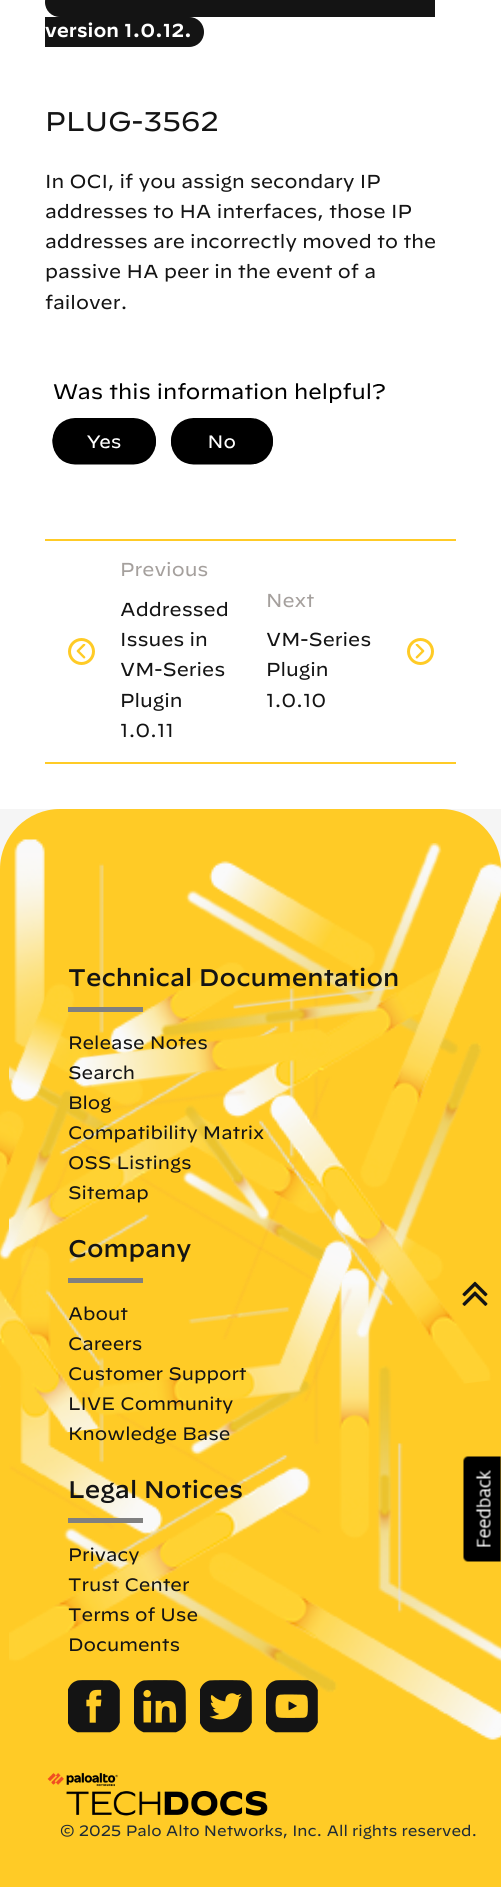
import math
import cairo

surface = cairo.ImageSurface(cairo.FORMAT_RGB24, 501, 1887)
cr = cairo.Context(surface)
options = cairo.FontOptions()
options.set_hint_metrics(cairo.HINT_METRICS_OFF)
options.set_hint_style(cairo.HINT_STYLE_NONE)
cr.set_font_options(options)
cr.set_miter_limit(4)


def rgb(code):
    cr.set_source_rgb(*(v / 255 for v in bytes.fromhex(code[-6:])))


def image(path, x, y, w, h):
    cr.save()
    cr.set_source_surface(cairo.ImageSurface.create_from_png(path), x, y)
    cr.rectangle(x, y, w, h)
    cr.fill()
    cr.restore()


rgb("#f5f5f5")
cr.paint()
rgb("#ffffff")
cr.rectangle(0, 0, 501, 809)
cr.fill()
rgb("#141414")
cr.new_path()
cr.move_to(60, -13)
cr.line_to(435, -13)
cr.line_to(435, 17)
cr.line_to(60, 17)
cr.curve_to(51.5, 17, 45, 10.5, 45, 2)
cr.curve_to(45, -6.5, 51.5, -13, 60, -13)
cr.close_path()
cr.fill()
cr.new_path()
cr.move_to(45, 17)
cr.line_to(189, 17)
cr.curve_to(197.5, 17, 204, 23.5, 204, 32)
cr.curve_to(204, 40.5, 197.5, 47, 189, 47)
cr.line_to(45, 47)
cr.close_path()
cr.fill()
image("img/1.png", 52, 383, 333, 82)
rgb("#ffcb26")
cr.rectangle(45, 539, 411, 2)
cr.fill()
cr.arc(81.5, 651.5, 12, 0, 2 * math.pi)
cr.set_line_width(3)
cr.stroke()
image("img/2.png", 76, 644, 10, 15)
cr.arc(420.5, 651.5, 12, 0, 2 * math.pi)
cr.stroke()
image("img/3.png", 415, 644, 10, 15)
cr.rectangle(45, 762, 411, 2)
cr.fill()
cr.new_path()
cr.move_to(60, 809)
cr.line_to(441, 809)
cr.curve_to(474, 809, 501, 836, 501, 869)
cr.line_to(501, 1887)
cr.line_to(0, 1887)
cr.line_to(0, 869)
cr.curve_to(0, 836, 27, 809, 60, 809)
cr.close_path()
cr.fill()
image("img/4.png", 9, 839, 492, 901)
image("img/5.png", 0, 842, 501, 591)
for x, y, w, h, color in [
    (68, 1007, 75, 5, "#808080"),
    (68, 1278, 75, 5, "#808080"),
    (68, 1518, 75, 5, "#808080"),
]:
    rgb(color)
    cr.rectangle(x, y, w, h)
    cr.fill()
image("img/6.png", 68, 1680, 52, 53)
image("img/7.png", 134, 1680, 52, 53)
image("img/8.png", 200, 1680, 52, 53)
image("img/9.png", 266, 1680, 52, 53)
image("img/10.png", 47, 1772, 221, 44)
image("img/11.png", 462, 1281, 26, 25)
image("img/12.png", 463, 1456, 38, 106)
cr.select_font_face("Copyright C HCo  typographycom")
cr.set_font_size(18.75)
rgb("#ffffff")
cr.move_to(45, 37)
cr.show_text("version 1.0.12.")
cr.select_font_face("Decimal")
cr.set_font_size(27)
rgb("#141414")
cr.move_to(45, 131)
cr.show_text("PLUG-3562")
cr.set_font_size(18.75)
for x, y, s in [
    (45, 188, "In OCI, if you assign secondary IP"),
    (45, 218, "addresses to HA interfaces, those IP"),
    (45, 248, "addresses are incorrectly moved to the"),
    (45, 278, "passive HA peer in the event of a"),
    (45, 309, "failover."),
]:
    cr.move_to(x, y)
    cr.show_text(s)
rgb("#a5a09d")
cr.move_to(120, 576)
cr.show_text("Previous")
rgb("#141414")
for x, y, s in [
    (120, 616, "Addressed"),
    (120, 646, "Issues in"),
    (120, 676, "VM-Series"),
    (120, 707, "Plugin"),
    (120, 737, "1.0.11"),
]:
    cr.move_to(x, y)
    cr.show_text(s)
rgb("#a5a09d")
cr.move_to(266, 607)
cr.show_text("Next")
rgb("#141414")
for x, y, s in [
    (266, 646, "VM-Series"),
    (266, 676, "Plugin"),
    (266, 707, "1.0.10"),
]:
    cr.move_to(x, y)
    cr.show_text(s)
cr.select_font_face("Copyright C HCo  typographycom Light")
cr.set_font_size(24)
cr.move_to(68, 986)
cr.show_text("Technical Documentation")
cr.select_font_face("Decimal")
cr.set_font_size(18)
for x, y, s in [
    (68, 1049, "Release Notes"),
    (68, 1079, "Search"),
    (68, 1109, "Blog"),
    (68, 1139, "Compatibility Matrix"),
    (68, 1169, "OSS Listings"),
    (68, 1199, "Sitemap"),
]:
    cr.move_to(x, y)
    cr.show_text(s)
cr.select_font_face("Copyright C HCo  typographycom Light")
cr.set_font_size(24)
cr.move_to(68, 1257)
cr.show_text("Company")
cr.select_font_face("Decimal")
cr.set_font_size(18)
for x, y, s in [
    (68, 1320, "About"),
    (68, 1350, "Careers"),
    (68, 1380, "Customer Support"),
    (68, 1410, "LIVE Community"),
    (68, 1440, "Knowledge Base"),
]:
    cr.move_to(x, y)
    cr.show_text(s)
cr.select_font_face("Copyright C HCo  typographycom Light")
cr.set_font_size(24)
cr.move_to(68, 1498)
cr.show_text("Legal Notices")
cr.select_font_face("Decimal")
cr.set_font_size(18)
for x, y, s in [
    (68, 1561, "Privacy"),
    (68, 1591, "Trust Center"),
    (68, 1621, "Terms of Use"),
    (68, 1651, "Documents"),
]:
    cr.move_to(x, y)
    cr.show_text(s)
cr.set_font_size(15)
rgb("#1f2b35")
cr.move_to(60, 1836)
cr.show_text("© 2025 Palo Alto Networks, Inc. All rights reserved.")
surface.write_to_png("page.png")
